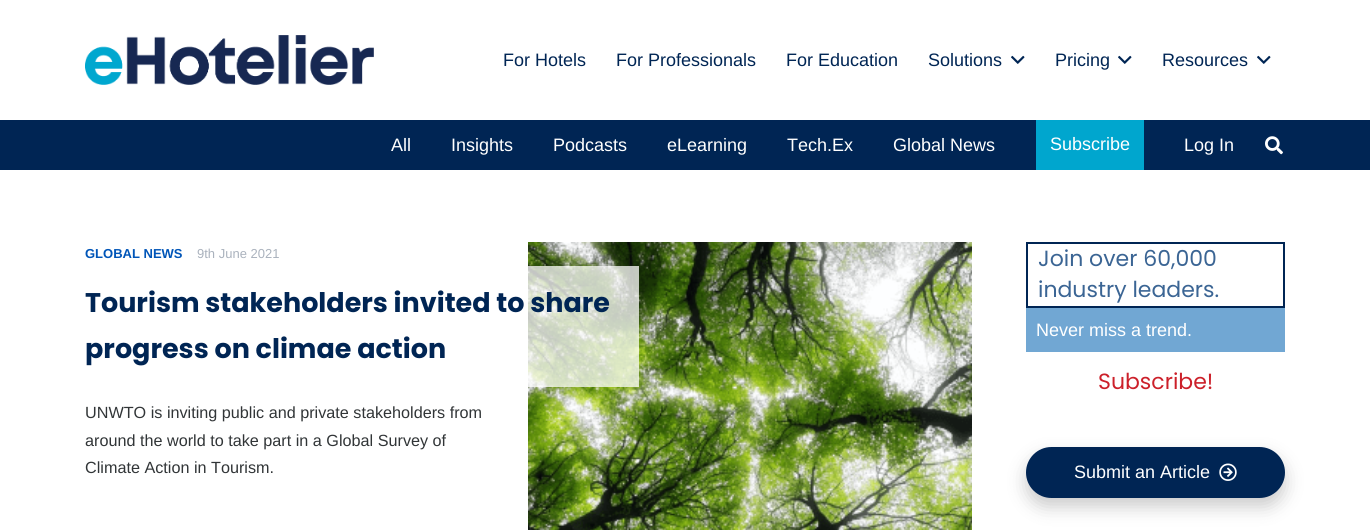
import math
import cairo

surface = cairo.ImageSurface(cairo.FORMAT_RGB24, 1370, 530)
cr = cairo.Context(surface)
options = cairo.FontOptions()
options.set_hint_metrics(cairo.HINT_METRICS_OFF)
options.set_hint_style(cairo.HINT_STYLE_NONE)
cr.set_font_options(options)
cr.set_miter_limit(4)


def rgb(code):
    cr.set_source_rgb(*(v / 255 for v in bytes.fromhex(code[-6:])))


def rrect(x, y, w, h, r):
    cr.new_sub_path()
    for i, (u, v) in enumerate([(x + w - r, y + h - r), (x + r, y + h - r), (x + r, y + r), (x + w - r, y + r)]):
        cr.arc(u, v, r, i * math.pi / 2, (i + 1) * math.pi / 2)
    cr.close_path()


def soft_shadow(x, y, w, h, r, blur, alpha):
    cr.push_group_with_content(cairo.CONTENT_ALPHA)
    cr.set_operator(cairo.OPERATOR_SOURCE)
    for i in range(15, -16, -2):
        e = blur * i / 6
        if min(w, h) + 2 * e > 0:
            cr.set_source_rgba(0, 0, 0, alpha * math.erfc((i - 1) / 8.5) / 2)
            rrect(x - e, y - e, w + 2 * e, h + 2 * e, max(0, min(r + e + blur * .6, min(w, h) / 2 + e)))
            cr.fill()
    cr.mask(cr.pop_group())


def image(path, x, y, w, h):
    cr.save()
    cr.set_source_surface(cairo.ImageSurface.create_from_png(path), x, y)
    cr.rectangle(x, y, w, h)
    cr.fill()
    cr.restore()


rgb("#ffffff")
cr.paint()
image("img/1.png", 85, 35, 289, 50)
image("img/2.png", 1011, 55, 14, 9)
image("img/2.png", 1118, 55, 14, 9)
image("img/2.png", 1257, 55, 14, 9)
rgb("#002554")
cr.rectangle(0, 120, 1370, 50)
cr.fill()
rgb("#00a6ce")
cr.rectangle(1036, 120, 108, 50)
cr.fill()
image("img/3.png", 1265, 136, 18, 19)
image("img/4.png", 528, 242, 444, 288)
cr.set_source_rgba(1, 1, 1, 0.75)
cr.rectangle(528, 266, 111, 121)
cr.fill()
cr.rectangle(1027, 243, 257, 64)
rgb("#002554")
cr.stroke()
rgb("#71a7d3")
cr.rectangle(1026, 308, 259, 44)
cr.fill()
rgb("#000000")
soft_shadow(1026, 456, 259, 51, 25.5, 9, 0.2)
rgb("#002554")
rrect(1026, 447, 259, 51, 25.5)
cr.fill()
image("img/5.png", 1219, 463, 18, 18)
cr.select_font_face("Liberation Sans")
cr.set_font_size(18)
for x, y, s in [
    (503, 66, "For Hotels"),
    (616, 66, "For Professionals"),
    (786, 66, "For Education"),
    (928, 66, "Solutions"),
    (1055, 66, "Pricing"),
    (1162, 66, "Resources"),
]:
    cr.move_to(x, y)
    cr.show_text(s)
rgb("#ffffff")
for x, y, s in [
    (391, 151, "All"),
    (451, 151, "Insights"),
    (553, 151, "Podcasts"),
    (667, 151, "eLearning"),
    (787, 151, "Tech.Ex"),
    (893, 151, "Global News"),
    (1050, 150, "Subscribe"),
    (1184, 151, "Log In"),
]:
    cr.move_to(x, y)
    cr.show_text(s)
cr.select_font_face("Liberation Sans", cairo.FONT_SLANT_NORMAL, cairo.FONT_WEIGHT_BOLD)
cr.set_font_size(13)
rgb("#0055b8")
cr.move_to(85, 258)
cr.show_text("GLOBAL NEWS")
cr.select_font_face("Liberation Sans")
rgb("#aab2bd")
cr.move_to(197, 258)
cr.show_text("9th June 2021")
cr.select_font_face("Poppins", cairo.FONT_SLANT_NORMAL, cairo.FONT_WEIGHT_BOLD)
cr.set_font_size(27)
rgb("#002554")
cr.move_to(85, 312)
cr.show_text("Tourism stakeholders invited to share")
cr.move_to(85, 358)
cr.show_text("progress on climae action")
cr.select_font_face("Liberation Sans")
cr.set_font_size(16.2)
rgb("#313537")
for x, y, s in [
    (85, 418, "UNWTO is inviting public and private stakeholders from"),
    (85, 446, "around the world to take part in a Global Survey of"),
    (85, 473, "Climate Action in Tourism."),
]:
    cr.move_to(x, y)
    cr.show_text(s)
cr.select_font_face("Poppins")
cr.set_font_size(22)
rgb("#3b6594")
cr.move_to(1038, 266)
cr.show_text("Join over 60,000")
cr.move_to(1038, 297)
cr.show_text("industry leaders.")
cr.select_font_face("Liberation Sans")
cr.set_font_size(18)
rgb("#ffffff")
cr.move_to(1036, 336)
cr.show_text("Never miss a trend.")
cr.select_font_face("Poppins")
cr.set_font_size(22)
rgb("#cc202a")
cr.move_to(1098, 389)
cr.show_text("Subscribe!")
cr.select_font_face("Liberation Sans")
cr.set_font_size(18)
rgb("#ffffff")
cr.move_to(1074, 478)
cr.show_text("Submit an Article")
surface.write_to_png("page.png")
